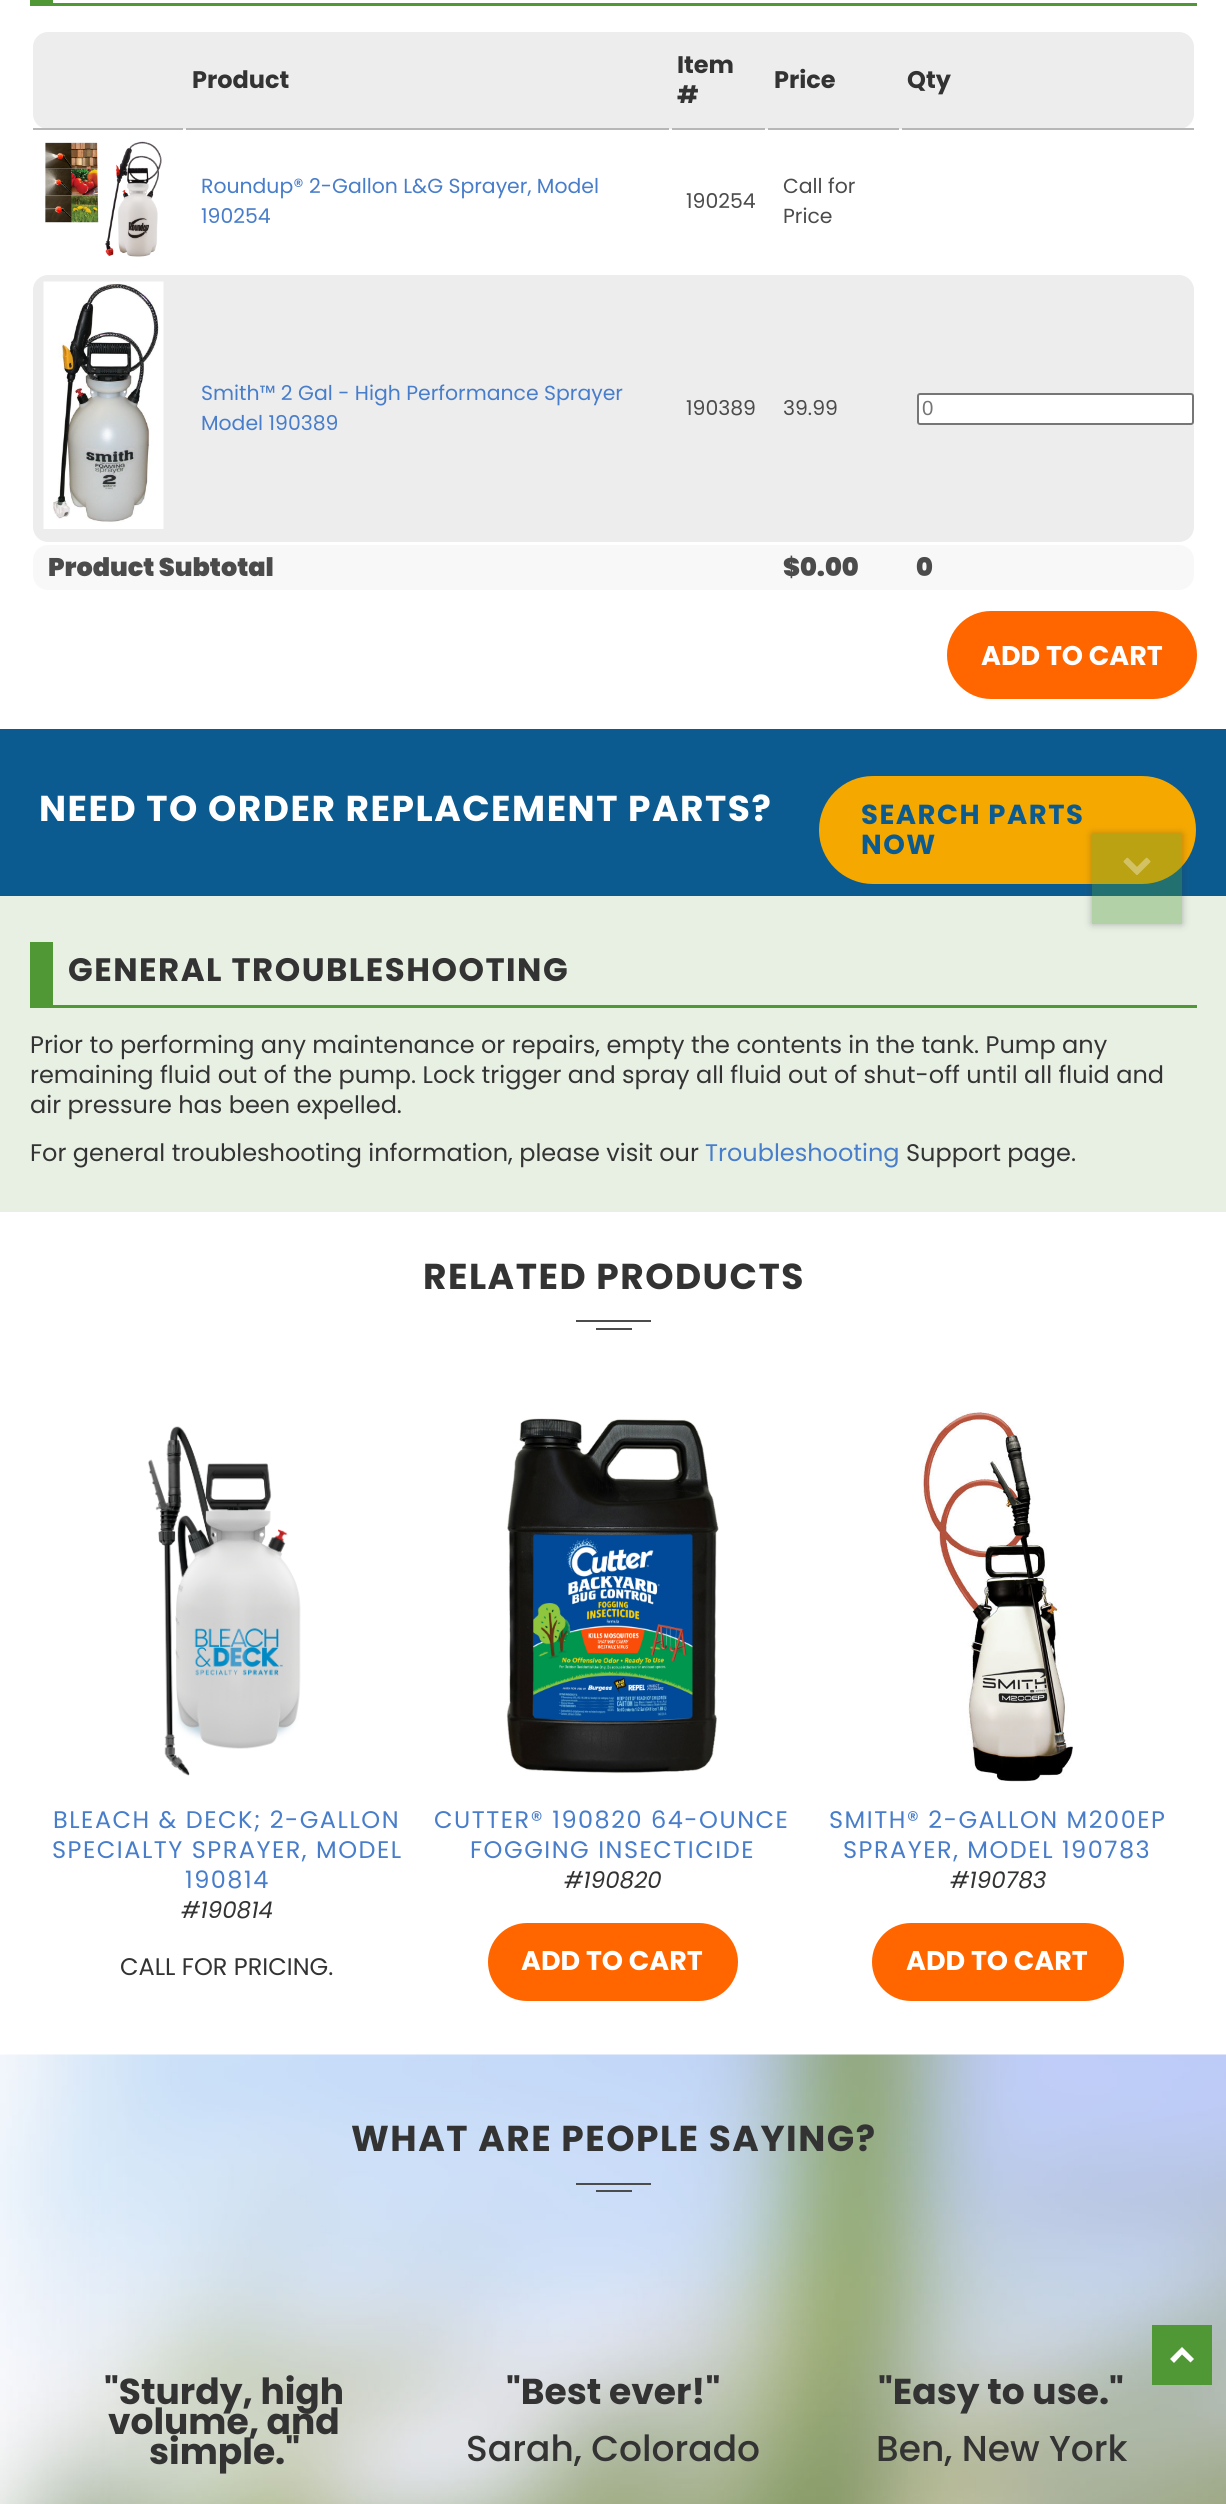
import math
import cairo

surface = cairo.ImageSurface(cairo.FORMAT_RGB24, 1226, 2504)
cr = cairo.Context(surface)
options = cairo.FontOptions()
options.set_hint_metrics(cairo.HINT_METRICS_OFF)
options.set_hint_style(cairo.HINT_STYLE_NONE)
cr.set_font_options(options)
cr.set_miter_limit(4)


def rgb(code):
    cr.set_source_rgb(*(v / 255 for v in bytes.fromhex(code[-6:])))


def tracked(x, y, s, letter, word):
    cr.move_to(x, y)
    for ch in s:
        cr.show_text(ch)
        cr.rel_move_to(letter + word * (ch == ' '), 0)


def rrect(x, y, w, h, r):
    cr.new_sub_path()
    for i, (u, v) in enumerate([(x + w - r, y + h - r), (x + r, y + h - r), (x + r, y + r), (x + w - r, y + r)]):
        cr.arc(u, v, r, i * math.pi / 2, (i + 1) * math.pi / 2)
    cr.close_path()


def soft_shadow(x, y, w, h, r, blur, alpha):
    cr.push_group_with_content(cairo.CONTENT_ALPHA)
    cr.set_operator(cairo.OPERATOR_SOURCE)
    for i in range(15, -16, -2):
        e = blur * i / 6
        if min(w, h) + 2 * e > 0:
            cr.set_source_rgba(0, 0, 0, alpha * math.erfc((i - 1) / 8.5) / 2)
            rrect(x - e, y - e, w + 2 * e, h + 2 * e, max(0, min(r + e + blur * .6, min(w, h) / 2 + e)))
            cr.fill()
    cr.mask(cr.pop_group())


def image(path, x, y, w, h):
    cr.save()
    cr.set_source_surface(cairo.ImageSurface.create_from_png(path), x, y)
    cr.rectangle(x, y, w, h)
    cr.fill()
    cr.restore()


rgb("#ffffff")
cr.paint()
rgb("#4f9835")
cr.rectangle(53, 3, 1144, 3)
cr.fill()
cr.rectangle(30, 0, 23, 6)
cr.fill()
rgb("#ededed")
rrect(33, 32, 1161, 97, 15)
cr.fill()
for x, y, w, h, color in [
    (186, 128, 483, 2, "#b7b7b7"),
    (672, 128, 93, 2, "#b7b7b7"),
    (768, 128, 131, 2, "#b7b7b7"),
    (902, 128, 292, 2, "#b7b7b7"),
    (33, 128, 150, 2, "#b7b7b7"),
]:
    rgb(color)
    cr.rectangle(x, y, w, h)
    cr.fill()
image("img/1.png", 45, 141, 117, 116)
rgb("#ededed")
rrect(33, 275, 1161, 267, 15)
cr.fill()
image("img/2.png", 43, 281, 121, 248)
rgb("#ffffff")
rrect(918, 394, 275, 30, 2)
cr.fill_preserve()
rgb("#767676")
cr.stroke()
rgb("#f8f8f8")
rrect(33, 545, 1161, 45, 15)
cr.fill()
rgb("#ff6600")
rrect(949.5, 613.5, 245, 83, 41.5)
cr.fill_preserve()
cr.set_line_width(5)
cr.stroke()
rgb("#0c5b90")
cr.rectangle(0, 729, 1226, 167)
cr.fill()
rgb("#f5a800")
rrect(821.5, 778.5, 372, 103, 51.5)
cr.fill_preserve()
cr.stroke()
rgb("#e8f0e4")
cr.rectangle(0, 896, 1226, 316)
cr.fill()
cr.save()
cr.set_fill_rule(cairo.FILL_RULE_EVEN_ODD)
cr.new_path()
cr.move_to(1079, 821)
cr.line_to(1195, 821)
cr.line_to(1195, 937)
cr.line_to(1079, 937)
cr.close_path()
cr.move_to(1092, 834)
cr.line_to(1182, 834)
cr.line_to(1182, 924)
cr.line_to(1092, 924)
cr.close_path()
cr.clip()
rgb("#333333")
soft_shadow(1092, 834, 90, 90, 0, 4, 0.35)
cr.restore()
cr.set_source_rgba(0.31, 0.596, 0.208, 0.35)
cr.rectangle(1092, 834, 90, 90)
cr.fill()
image("img/3.png", 1123, 857, 28, 18)
for x, y, w, h, color in [
    (53, 1005, 1144, 3, "#4f9835"),
    (30, 942, 23, 66, "#4f9835"),
    (576, 1320, 75, 2, "#4c4c4c"),
    (596, 1328, 36, 2, "#4c4c4c"),
]:
    rgb(color)
    cr.rectangle(x, y, w, h)
    cr.fill()
image("img/4.png", 148, 1426, 153, 350)
image("img/5.png", 506, 1418, 213, 356)
rgb("#ff6600")
rrect(490.5, 1925.5, 245, 73, 36.5)
cr.fill_preserve()
cr.stroke()
image("img/6.png", 921, 1412, 152, 370)
rrect(874.5, 1925.5, 247, 73, 36.5)
cr.fill_preserve()
cr.stroke()
image("img/7.png", 0, 2054, 1226, 450)
for x, y, w, h, color in [
    (576, 2183, 75, 2, "#4c4c4c"),
    (596, 2190, 36, 2, "#4c4c4c"),
    (1152, 2325, 60, 60, "#4f9835"),
]:
    rgb(color)
    cr.rectangle(x, y, w, h)
    cr.fill()
rgb("#ffffff")
cr.new_path()
cr.move_to(1182, 2347)
cr.line_to(1194, 2359)
cr.line_to(1190.5, 2362.5)
cr.line_to(1182, 2354.5)
cr.line_to(1174, 2363)
cr.line_to(1170, 2359)
cr.close_path()
cr.fill()
cr.select_font_face("Poppins", cairo.FONT_SLANT_NORMAL, cairo.FONT_WEIGHT_BOLD)
cr.set_font_size(24)
rgb("#333333")
for x, y, s in [
    (192, 88, "Product"),
    (677, 73, "Item"),
    (677, 103, "#"),
    (774, 88, "Price"),
    (907, 88, "Qty"),
]:
    cr.move_to(x, y)
    cr.show_text(s)
cr.select_font_face("Poppins")
cr.set_font_size(20.4)
rgb("#477dca")
cr.move_to(201, 193)
cr.show_text("Roundup® 2-Gallon L&G Sprayer, Model")
cr.move_to(201, 223)
cr.show_text("190254")
rgb("#4b4b4b")
for x, y, s in [
    (686, 208, "190254"),
    (783, 193, "Call for"),
    (783, 223, "Price"),
]:
    cr.move_to(x, y)
    cr.show_text(s)
rgb("#477dca")
cr.move_to(201, 400)
cr.show_text("Smith™ 2 Gal - High Performance Sprayer")
cr.move_to(201, 430)
cr.show_text("Model 190389")
rgb("#4b4b4b")
cr.move_to(686, 415)
cr.show_text("190389")
cr.move_to(783, 415)
cr.show_text("39.99")
cr.select_font_face("Liberation Sans")
rgb("#757575")
cr.move_to(922, 415)
cr.show_text("0")
cr.select_font_face("Poppins Black")
cr.set_font_size(25.5)
rgb("#4b4b4b")
for x, y, s in [
    (48, 576, "Product Subtotal"),
    (783, 576, "$0.00"),
    (916, 576, "0"),
]:
    cr.move_to(x, y)
    cr.show_text(s)
cr.select_font_face("Poppins", cairo.FONT_SLANT_NORMAL, cairo.FONT_WEIGHT_BOLD)
cr.set_font_size(27)
rgb("#ffffff")
cr.move_to(981, 665)
cr.show_text("ADD TO CART")
cr.set_font_size(36)
tracked(39, 821, "NEED TO ORDER REPLACEMENT PARTS?", 1.5, 0)
cr.set_font_size(27.5)
rgb("#0c5b90")
tracked(861, 824, "SEARCH PARTS", 1.5, 0)
tracked(861, 854, "NOW", 1.5, 0)
cr.set_font_size(32.4)
rgb("#333333")
tracked(68, 981, "GENERAL TROUBLESHOOTING", 1.5, 0)
cr.select_font_face("Poppins")
cr.set_font_size(24)
for x, y, s in [
    (30, 1053, "Prior to performing any maintenance or repairs, empty the contents in the tank. Pump any"),
    (30, 1083, "remaining fluid out of the pump. Lock trigger and spray all fluid out of shut-off until all fluid and"),
    (30, 1113, "air pressure has been expelled."),
    (30, 1161, "For general troubleshooting information, please visit our"),
]:
    cr.move_to(x, y)
    cr.show_text(s)
rgb("#477dca")
cr.move_to(705, 1161)
cr.show_text("Troubleshooting")
rgb("#333333")
cr.move_to(906, 1161)
cr.show_text("Support page.")
cr.select_font_face("Poppins", cairo.FONT_SLANT_NORMAL, cairo.FONT_WEIGHT_BOLD)
cr.set_font_size(36)
tracked(423, 1289, "RELATED PRODUCTS", 1.5, 0)
cr.select_font_face("Poppins")
cr.set_font_size(24)
rgb("#477dca")
for x, y, s in [
    (53, 1828, "BLEACH & DECK; 2-GALLON"),
    (52, 1858, "SPECIALTY SPRAYER, MODEL"),
    (185, 1888, "190814"),
]:
    tracked(x, y, s, 1.5, 0)
cr.select_font_face("Poppins", cairo.FONT_SLANT_ITALIC)
cr.set_font_size(23)
rgb("#333333")
cr.move_to(181, 1918)
cr.show_text("#190814")
cr.select_font_face("Poppins")
cr.set_font_size(24)
cr.move_to(120, 1975)
cr.show_text("CALL FOR PRICING.")
rgb("#477dca")
tracked(434, 1828, "CUTTER® 190820 64-OUNCE", 1.5, 0)
tracked(470, 1858, "FOGGING INSECTICIDE", 1.5, 0)
cr.select_font_face("Poppins", cairo.FONT_SLANT_ITALIC)
cr.set_font_size(23)
rgb("#333333")
cr.move_to(564, 1888)
cr.show_text("#190820")
cr.select_font_face("Poppins", cairo.FONT_SLANT_NORMAL, cairo.FONT_WEIGHT_BOLD)
cr.set_font_size(27)
rgb("#ffffff")
cr.move_to(521, 1970)
cr.show_text("ADD TO CART")
cr.select_font_face("Poppins")
cr.set_font_size(24)
rgb("#477dca")
tracked(829, 1828, "SMITH® 2-GALLON M200EP", 1.5, 0)
tracked(843, 1858, "SPRAYER, MODEL 190783", 1.5, 0)
cr.select_font_face("Poppins", cairo.FONT_SLANT_ITALIC)
cr.set_font_size(23)
rgb("#333333")
cr.move_to(950, 1888)
cr.show_text("#190783")
cr.select_font_face("Poppins", cairo.FONT_SLANT_NORMAL, cairo.FONT_WEIGHT_BOLD)
cr.set_font_size(27)
rgb("#ffffff")
cr.move_to(906, 1970)
cr.show_text("ADD TO CART")
cr.set_font_size(36)
rgb("#333333")
tracked(351, 2151, "WHAT ARE PEOPLE SAYING?", 1.5, 0)
for x, y, s in [
    (104, 2404, "\"Sturdy, high"),
    (108, 2434, "volume, and"),
    (149, 2464, "simple.\""),
    (506, 2404, "\"Best ever!\""),
]:
    cr.move_to(x, y)
    cr.show_text(s)
cr.select_font_face("Poppins Medium")
cr.move_to(466, 2461)
cr.show_text("Sarah, Colorado")
cr.select_font_face("Poppins", cairo.FONT_SLANT_NORMAL, cairo.FONT_WEIGHT_BOLD)
cr.move_to(878, 2404)
cr.show_text("\"Easy to use.\"")
cr.select_font_face("Poppins Medium")
cr.move_to(876, 2461)
cr.show_text("Ben, New York")
surface.write_to_png("page.png")
